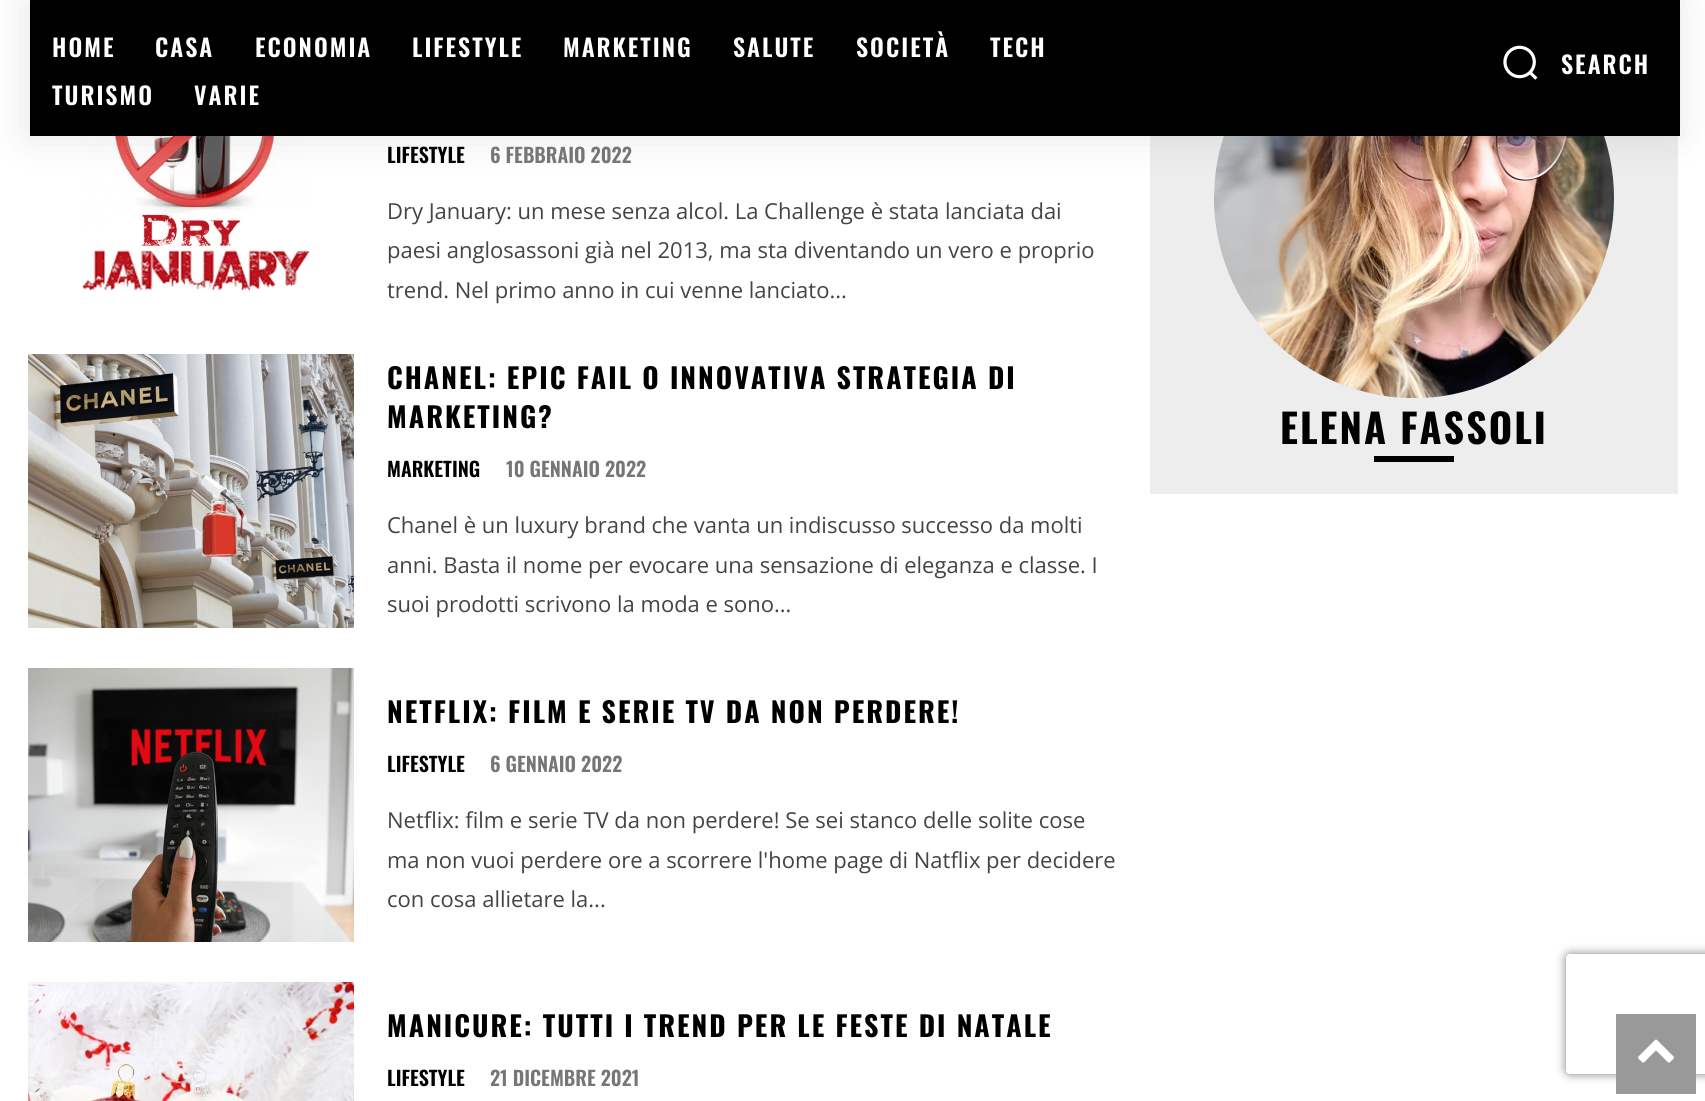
import math
import cairo

surface = cairo.ImageSurface(cairo.FORMAT_RGB24, 1705, 1101)
cr = cairo.Context(surface)
options = cairo.FontOptions()
options.set_hint_metrics(cairo.HINT_METRICS_OFF)
options.set_hint_style(cairo.HINT_STYLE_NONE)
cr.set_font_options(options)
cr.set_miter_limit(4)


def rgb(code):
    cr.set_source_rgb(*(v / 255 for v in bytes.fromhex(code[-6:])))


def tracked(x, y, s, letter, word):
    cr.move_to(x, y)
    for ch in s:
        cr.show_text(ch)
        cr.rel_move_to(letter + word * (ch == ' '), 0)


def rrect(x, y, w, h, r):
    cr.new_sub_path()
    for i, (u, v) in enumerate([(x + w - r, y + h - r), (x + r, y + h - r), (x + r, y + r), (x + w - r, y + r)]):
        cr.arc(u, v, r, i * math.pi / 2, (i + 1) * math.pi / 2)
    cr.close_path()


def soft_shadow(x, y, w, h, r, blur, alpha):
    cr.push_group_with_content(cairo.CONTENT_ALPHA)
    cr.set_operator(cairo.OPERATOR_SOURCE)
    for i in range(15, -16, -2):
        e = blur * i / 6
        if min(w, h) + 2 * e > 0:
            cr.set_source_rgba(0, 0, 0, alpha * math.erfc((i - 1) / 8.5) / 2)
            rrect(x - e, y - e, w + 2 * e, h + 2 * e, max(0, min(r + e + blur * .6, min(w, h) / 2 + e)))
            cr.fill()
    cr.mask(cr.pop_group())


def image(path, x, y, w, h):
    cr.save()
    cr.set_source_surface(cairo.ImageSurface.create_from_png(path), x, y)
    cr.rectangle(x, y, w, h)
    cr.fill()
    cr.restore()


rgb("#ffffff")
cr.paint()
image("img/2.png", 82, 136, 228, 155)
rgb("#ededed")
cr.rectangle(1150, 136, 528, 358)
cr.fill()
image("img/6.png", 1214, 136, 400, 262)
rgb("#000000")
soft_shadow(28, 0, 1650, 136, 0, 20, 0.1)
rgb("#000000")
cr.rectangle(30, 0, 1650, 136)
cr.fill()
image("img/1.png", 1503, 45, 35, 35)
image("img/3.png", 28, 354, 326, 274)
image("img/4.png", 28, 668, 326, 274)
image("img/5.png", 28, 982, 326, 119)
cr.rectangle(1374, 456, 80, 6)
cr.fill()
cr.save()
cr.set_fill_rule(cairo.FILL_RULE_EVEN_ODD)
cr.new_path()
cr.move_to(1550, 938)
cr.line_to(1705, 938)
cr.line_to(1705, 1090)
cr.line_to(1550, 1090)
cr.close_path()
cr.move_to(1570, 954)
cr.line_to(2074, 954)
cr.curve_to(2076, 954, 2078, 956, 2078, 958)
cr.line_to(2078, 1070)
cr.curve_to(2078, 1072, 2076, 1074, 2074, 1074)
cr.line_to(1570, 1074)
cr.curve_to(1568, 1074, 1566, 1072, 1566, 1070)
cr.line_to(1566, 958)
cr.curve_to(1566, 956, 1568, 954, 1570, 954)
cr.close_path()
cr.clip()
rgb("#808080")
soft_shadow(1566, 954, 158, 120, 4, 5, 1)
cr.restore()
rgb("#999999")
cr.rectangle(1616, 1014, 80, 80)
cr.fill()
image("img/7.png", 1638, 1039, 36, 24)
cr.select_font_face("Oswald SemiBold")
cr.set_font_size(24)
rgb("#ffffff")
for x, y, s in [
    (52, 57, "HOME"),
    (155, 57, "CASA"),
    (255, 57, "ECONOMIA"),
    (412, 57, "LIFESTYLE"),
    (563, 57, "MARKETING"),
    (733, 57, "SALUTE"),
    (856, 57, "SOCIETÀ"),
    (990, 57, "TECH"),
    (52, 105, "TURISMO"),
    (194, 105, "VARIE"),
    (1561, 74, "SEARCH"),
]:
    tracked(x, y, s, 2, 0)
cr.set_font_size(20)
rgb("#000000")
cr.move_to(387, 163)
cr.show_text("LIFESTYLE")
rgb("#767676")
cr.move_to(490, 163)
cr.show_text("6 FEBBRAIO 2022")
cr.select_font_face("Open Sans")
cr.set_font_size(22)
rgb("#444444")
for x, y, s in [
    (387, 219, "Dry January: un mese senza alcol. La Challenge è stata lanciata dai"),
    (387, 258, "paesi anglosassoni già nel 2013, ma sta diventando un vero e proprio"),
    (387, 298, "trend. Nel primo anno in cui venne lanciato..."),
]:
    cr.move_to(x, y)
    cr.show_text(s)
cr.select_font_face("Oswald", cairo.FONT_SLANT_NORMAL, cairo.FONT_WEIGHT_BOLD)
cr.set_font_size(28)
rgb("#000000")
tracked(387, 389, "CHANEL: EPIC FAIL O INNOVATIVA STRATEGIA DI", 2, 0)
tracked(387, 428, "MARKETING?", 2, 0)
cr.select_font_face("Oswald SemiBold")
cr.set_font_size(20)
cr.move_to(387, 477)
cr.show_text("MARKETING")
rgb("#767676")
cr.move_to(506, 477)
cr.show_text("10 GENNAIO 2022")
cr.select_font_face("Open Sans")
cr.set_font_size(22)
rgb("#444444")
for x, y, s in [
    (387, 533, "Chanel è un luxury brand che vanta un indiscusso successo da molti"),
    (387, 573, "anni. Basta il nome per evocare una sensazione di eleganza e classe. I"),
    (387, 612, "suoi prodotti scrivono la moda e sono..."),
]:
    cr.move_to(x, y)
    cr.show_text(s)
cr.select_font_face("Oswald", cairo.FONT_SLANT_NORMAL, cairo.FONT_WEIGHT_BOLD)
cr.set_font_size(28)
rgb("#000000")
tracked(387, 723, "NETFLIX: FILM E SERIE TV DA NON PERDERE!", 2, 0)
cr.select_font_face("Oswald SemiBold")
cr.set_font_size(20)
cr.move_to(387, 772)
cr.show_text("LIFESTYLE")
rgb("#767676")
cr.move_to(490, 772)
cr.show_text("6 GENNAIO 2022")
cr.select_font_face("Open Sans")
cr.set_font_size(22)
rgb("#444444")
for x, y, s in [
    (387, 828, "Netflix: film e serie TV da non perdere! Se sei stanco delle solite cose"),
    (387, 868, "ma non vuoi perdere ore a scorrere l'home page di Natflix per decidere"),
    (387, 907, "con cosa allietare la..."),
]:
    cr.move_to(x, y)
    cr.show_text(s)
cr.select_font_face("Oswald", cairo.FONT_SLANT_NORMAL, cairo.FONT_WEIGHT_BOLD)
cr.set_font_size(28)
rgb("#000000")
tracked(387, 1037, "MANICURE: TUTTI I TREND PER LE FESTE DI NATALE", 2, 0)
cr.select_font_face("Oswald SemiBold")
cr.set_font_size(20)
cr.move_to(387, 1086)
cr.show_text("LIFESTYLE")
rgb("#767676")
cr.move_to(490, 1086)
cr.show_text("21 DICEMBRE 2021")
cr.select_font_face("Oswald", cairo.FONT_SLANT_NORMAL, cairo.FONT_WEIGHT_BOLD)
cr.set_font_size(40)
rgb("#000000")
tracked(1280, 444, "ELENA FASSOLI", 2, 0)
surface.write_to_png("page.png")
